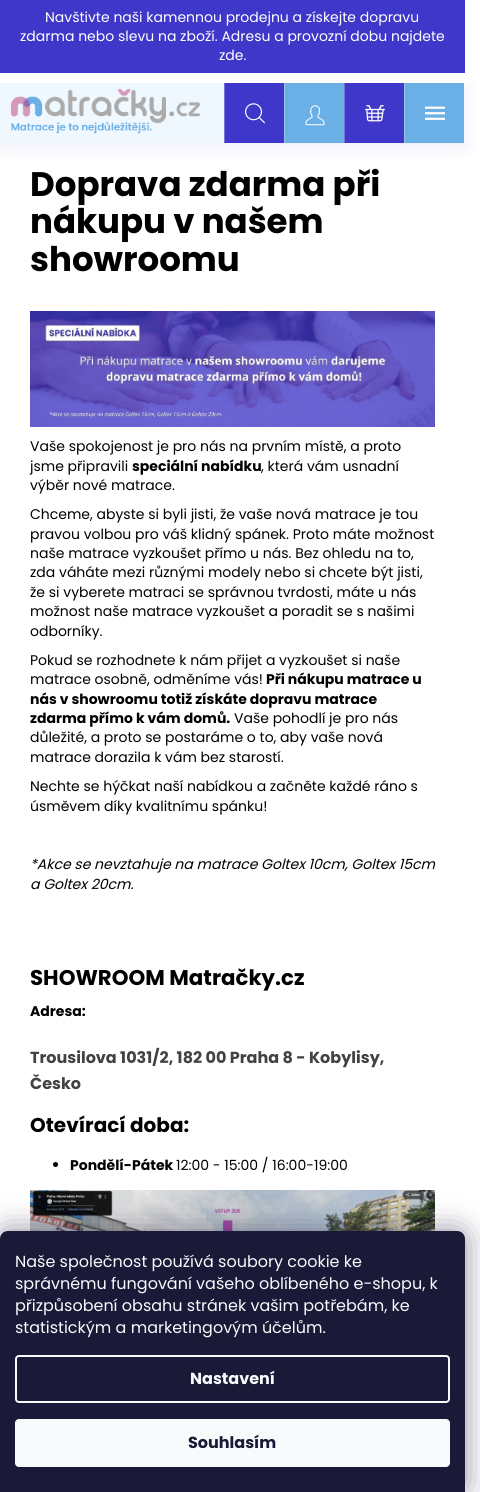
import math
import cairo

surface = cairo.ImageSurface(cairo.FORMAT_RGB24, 480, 1492)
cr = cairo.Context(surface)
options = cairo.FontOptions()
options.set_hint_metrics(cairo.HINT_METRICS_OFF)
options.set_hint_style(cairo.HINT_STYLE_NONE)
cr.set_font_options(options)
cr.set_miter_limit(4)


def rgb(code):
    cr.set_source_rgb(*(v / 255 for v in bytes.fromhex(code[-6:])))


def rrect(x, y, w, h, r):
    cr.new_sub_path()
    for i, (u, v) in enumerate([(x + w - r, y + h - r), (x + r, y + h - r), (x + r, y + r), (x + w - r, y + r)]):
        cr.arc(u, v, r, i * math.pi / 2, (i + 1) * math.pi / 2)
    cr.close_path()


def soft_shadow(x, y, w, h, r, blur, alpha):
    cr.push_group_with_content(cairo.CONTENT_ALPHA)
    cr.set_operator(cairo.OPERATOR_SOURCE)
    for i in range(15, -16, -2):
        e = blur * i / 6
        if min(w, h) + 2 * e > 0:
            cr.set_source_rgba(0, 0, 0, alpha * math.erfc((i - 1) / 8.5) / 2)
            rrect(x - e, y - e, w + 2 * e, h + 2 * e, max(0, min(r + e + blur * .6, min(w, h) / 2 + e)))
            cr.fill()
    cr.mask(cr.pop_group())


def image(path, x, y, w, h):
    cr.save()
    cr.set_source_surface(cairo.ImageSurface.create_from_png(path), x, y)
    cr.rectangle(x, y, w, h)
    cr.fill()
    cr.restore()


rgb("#ffffff")
cr.paint()
rgb("#3f37c9")
soft_shadow(0, 87, 465, 60, 0, 7.5, 0.1)
for x, y, w, h, color in [
    (0, 0, 465, 73, "#3f37c9"),
    (0, 79, 465, 4, "#ffffff"),
    (0, 83, 224, 60, "#f0f8ff"),
]:
    rgb(color)
    cr.rectangle(x, y, w, h)
    cr.fill()
image("img/1.png", 10, 88, 190, 46)
for x, y, w, h, color in [
    (464, 83, 1, 60, "#f5faff"),
    (225, 83, 59, 60, "#3f37c9"),
    (224, 83, 1, 60, "#7973d9"),
]:
    rgb(color)
    cr.rectangle(x, y, w, h)
    cr.fill()
image("img/2.png", 245, 103, 20, 21)
rgb("#6aafe6")
cr.rectangle(285, 83, 59, 60)
cr.fill()
rgb("#97c7ee")
cr.rectangle(284, 83, 1, 60)
cr.fill()
image("img/3.png", 305, 105, 20, 21)
rgb("#3f37c9")
cr.rectangle(345, 83, 59, 60)
cr.fill()
rgb("#7973d9")
cr.rectangle(344, 83, 1, 60)
cr.fill()
image("img/4.png", 365, 105, 20, 17)
rgb("#6aafe6")
cr.rectangle(405, 83, 59, 60)
cr.fill()
rgb("#97c7ee")
cr.rectangle(404, 83, 1, 60)
cr.fill()
image("img/5.png", 425, 106, 20, 14)
image("img/6.png", 30, 311, 405, 116)
rgb("#000000")
cr.arc(55.5, 1164.5, 2.5, 0, 2 * math.pi)
cr.fill()
image("img/7.png", 30, 1190, 405, 41)
rgb("#1b1939")
soft_shadow(0, 1231, 465, 261, 8, 15, 0.5)
rgb("#1a1937")
cr.new_path()
cr.move_to(8, 1231)
cr.line_to(457, 1231)
cr.curve_to(461.5, 1231, 465, 1234.5, 465, 1239)
cr.line_to(465, 1492)
cr.line_to(0, 1492)
cr.line_to(0, 1239)
cr.curve_to(0, 1234.5, 3.5, 1231, 8, 1231)
cr.close_path()
cr.fill()
rrect(16, 1356, 433, 46, 3)
rgb("#f8fafb")
cr.stroke()
rrect(15, 1419, 435, 48, 4)
cr.fill()
cr.select_font_face("Poppins")
cr.set_font_size(14)
rgb("#ffffff")
for x, y, s in [
    (45, 22, "Navštivte naši kamennou prodejnu a získejte dopravu"),
    (20, 41, "zdarma nebo slevu na zboží. Adresu a provozní dobu najdete"),
    (219, 60, "zde."),
]:
    cr.move_to(x, y)
    cr.show_text(s)
cr.select_font_face("Poppins", cairo.FONT_SLANT_NORMAL, cairo.FONT_WEIGHT_BOLD)
cr.set_font_size(34)
rgb("#000000")
for x, y, s in [
    (30, 196, "Doprava zdarma při"),
    (30, 233, "nákupu v našem"),
    (30, 271, "showroomu"),
]:
    cr.move_to(x, y)
    cr.show_text(s)
cr.select_font_face("Poppins")
cr.set_font_size(14)
cr.move_to(30, 451)
cr.show_text("Vaše spokojenost je pro nás na prvním místě, a proto")
cr.move_to(30, 471)
cr.show_text("jsme připravili")
cr.select_font_face("Poppins", cairo.FONT_SLANT_NORMAL, cairo.FONT_WEIGHT_BOLD)
cr.move_to(132, 471)
cr.show_text("speciální nabídku")
cr.select_font_face("Poppins")
for x, y, s in [
    (261, 471, ", která vám usnadní"),
    (30, 490, "výběr nové matrace."),
    (30, 519, "Chceme, abyste si byli jisti, že vaše nová matrace je tou"),
    (30, 539, "pravou volbou pro váš klidný spánek. Proto máte možnost"),
    (30, 558, "naše matrace vyzkoušet přímo u nás. Bez ohledu na to,"),
    (30, 577, "zda váháte mezi různými modely nebo si chcete být jisti,"),
    (30, 597, "že si vyberete matraci se správnou tvrdosti, máte u nás"),
    (30, 616, "možnost naše matrace vyzkoušet a poradit se s našimi"),
    (30, 636, "odborníky."),
    (30, 665, "Pokud se rozhodnete k nám přijet a vyzkoušet si naše"),
    (30, 684, "matrace osobně, odměníme vás!"),
]:
    cr.move_to(x, y)
    cr.show_text(s)
cr.select_font_face("Poppins", cairo.FONT_SLANT_NORMAL, cairo.FONT_WEIGHT_BOLD)
for x, y, s in [
    (266, 684, "Při nákupu matrace u"),
    (30, 704, "nás v showroomu totiž získáte dopravu matrace"),
    (30, 723, "zdarma přímo k vám domů."),
]:
    cr.move_to(x, y)
    cr.show_text(s)
cr.select_font_face("Poppins")
for x, y, s in [
    (234, 723, "Vaše pohodlí je pro nás"),
    (30, 742, "důležité, a proto se postaráme o to, aby vaše nová"),
    (30, 762, "matrace dorazila k vám bez starostí."),
    (30, 791, "Nechte se hýčkat naší nabídkou a začněte každé ráno s"),
    (30, 811, "úsměvem díky kvalitnímu spánku!"),
]:
    cr.move_to(x, y)
    cr.show_text(s)
cr.select_font_face("Poppins", cairo.FONT_SLANT_ITALIC)
cr.move_to(30, 869)
cr.show_text("*Akce se nevztahuje na matrace Goltex 10cm, Goltex 15cm")
cr.move_to(30, 889)
cr.show_text("a Goltex 20cm.")
cr.select_font_face("Poppins", cairo.FONT_SLANT_NORMAL, cairo.FONT_WEIGHT_BOLD)
cr.set_font_size(21.3)
cr.move_to(30, 985)
cr.show_text("SHOWROOM Matračky.cz")
cr.set_font_size(14)
cr.move_to(30, 1016)
cr.show_text("Adresa:")
cr.set_font_size(16)
rgb("#424242")
cr.move_to(30, 1063)
cr.show_text("Trousilova 1031/2, 182 00 Praha 8 - Kobylisy,")
cr.move_to(30, 1089)
cr.show_text("Česko")
cr.set_font_size(20)
rgb("#000000")
cr.move_to(30, 1132)
cr.show_text("Otevírací doba:")
cr.set_font_size(14)
cr.move_to(70, 1170)
cr.show_text("Pondělí-Pátek")
cr.select_font_face("Poppins")
cr.move_to(176, 1170)
cr.show_text("12:00 - 15:00 / 16:00-19:00")
cr.set_font_size(16)
rgb("#f8fafb")
for x, y, s in [
    (15, 1267, "Naše společnost používá soubory cookie ke"),
    (15, 1289, "správnému fungování vašeho oblíbeného e-shopu, k"),
    (15, 1311, "přizpůsobení obsahu stránek vašim potřebám, ke"),
    (15, 1333, "statistickým a marketingovým účelům."),
]:
    cr.move_to(x, y)
    cr.show_text(s)
cr.select_font_face("Poppins", cairo.FONT_SLANT_NORMAL, cairo.FONT_WEIGHT_BOLD)
cr.move_to(190, 1384)
cr.show_text("Nastavení")
rgb("#1a1937")
cr.move_to(188, 1448)
cr.show_text("Souhlasím")
surface.write_to_png("page.png")
